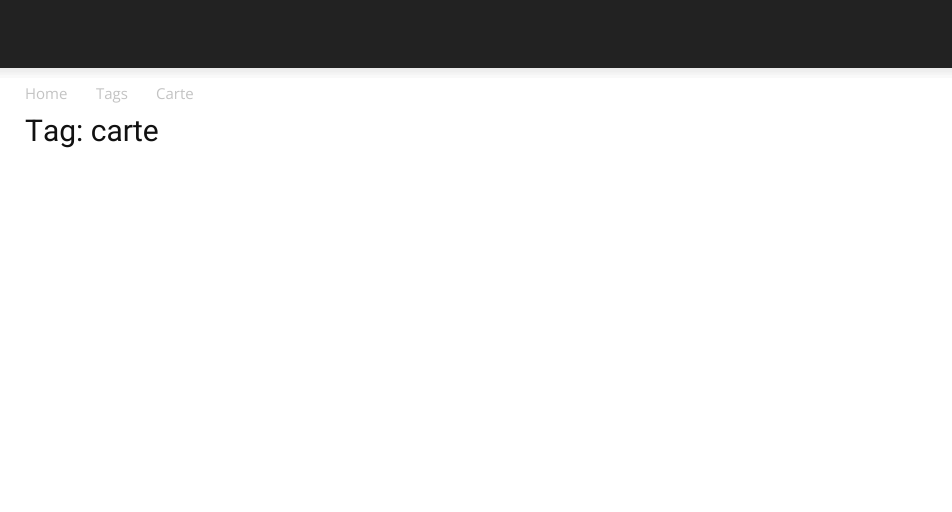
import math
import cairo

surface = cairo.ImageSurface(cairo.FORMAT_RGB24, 952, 512)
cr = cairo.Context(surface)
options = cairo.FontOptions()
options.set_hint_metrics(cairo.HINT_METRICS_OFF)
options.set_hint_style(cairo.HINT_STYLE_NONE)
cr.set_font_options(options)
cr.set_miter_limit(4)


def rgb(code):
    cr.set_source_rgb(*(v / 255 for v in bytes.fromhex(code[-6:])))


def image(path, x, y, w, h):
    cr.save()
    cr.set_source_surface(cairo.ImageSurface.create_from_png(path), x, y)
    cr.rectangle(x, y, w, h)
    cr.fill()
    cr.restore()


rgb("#ffffff")
cr.paint()
rgb("#222222")
cr.rectangle(0, 0, 952, 68)
cr.fill()
image("img/1.png", 0, 68, 952, 10)
cr.select_font_face("Open Sans")
cr.set_font_size(15)
rgb("#c3c3c3")
for x, y, s in [
    (25, 99, "Home"),
    (96, 99, "Tags"),
    (156, 99, "Carte"),
]:
    cr.move_to(x, y)
    cr.show_text(s)
cr.select_font_face("Roboto")
cr.set_font_size(30)
rgb("#111111")
cr.move_to(25, 141)
cr.show_text("Tag: carte")
surface.write_to_png("page.png")
